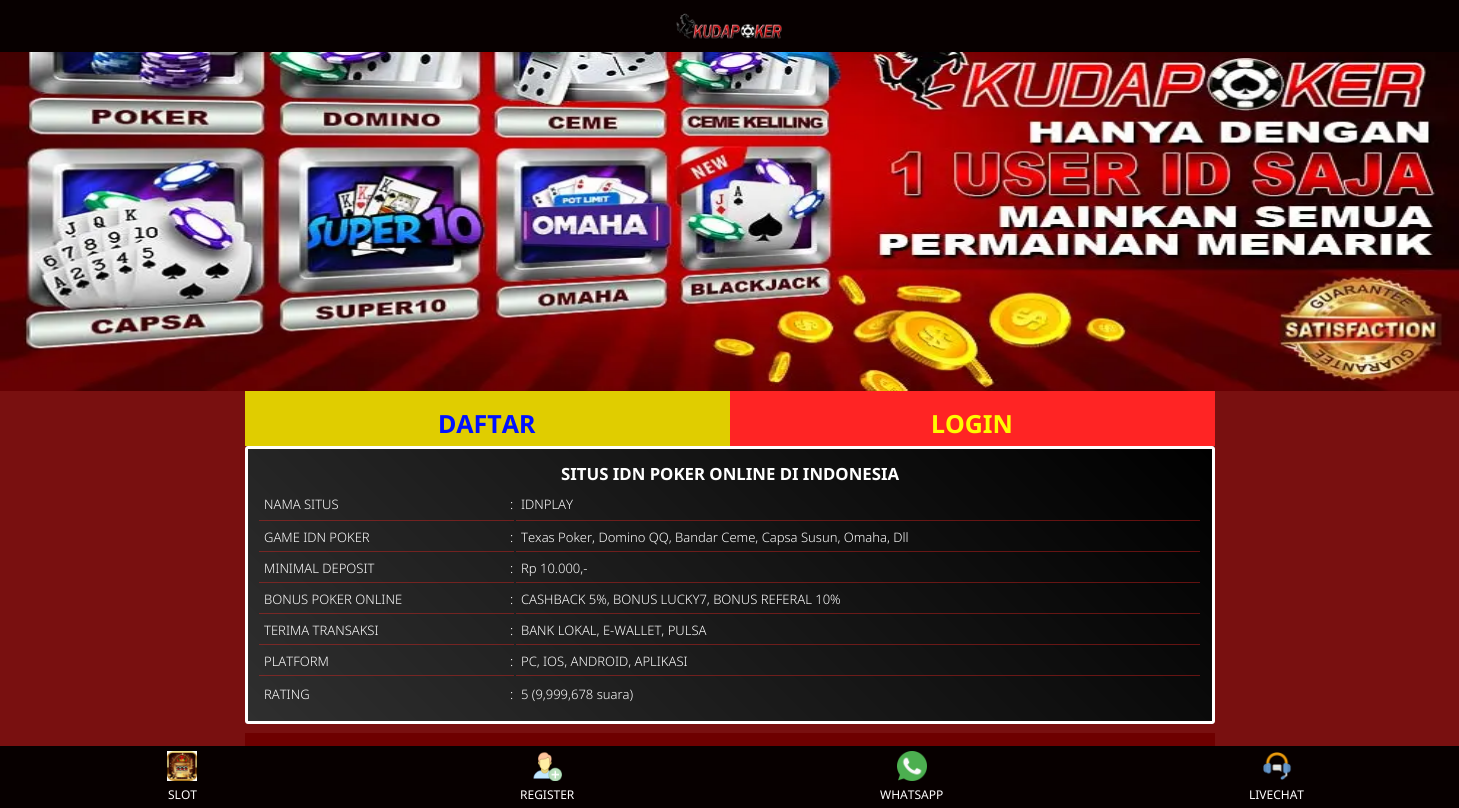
import math
import cairo

surface = cairo.ImageSurface(cairo.FORMAT_RGB24, 1459, 808)
cr = cairo.Context(surface)
options = cairo.FontOptions()
options.set_hint_metrics(cairo.HINT_METRICS_OFF)
options.set_hint_style(cairo.HINT_STYLE_NONE)
cr.set_font_options(options)
cr.set_miter_limit(4)


def rgb(code):
    cr.set_source_rgb(*(v / 255 for v in bytes.fromhex(code[-6:])))


def rrect(x, y, w, h, r):
    cr.new_sub_path()
    for i, (u, v) in enumerate([(x + w - r, y + h - r), (x + r, y + h - r), (x + r, y + r), (x + w - r, y + r)]):
        cr.arc(u, v, r, i * math.pi / 2, (i + 1) * math.pi / 2)
    cr.close_path()


def image(path, x, y, w, h):
    cr.save()
    cr.set_source_surface(cairo.ImageSurface.create_from_png(path), x, y)
    cr.rectangle(x, y, w, h)
    cr.fill()
    cr.restore()


rgb("#791010")
cr.paint()
rgb("#070000")
cr.rectangle(0, 0, 1459, 52)
cr.fill()
image("img/1.png", 676, 13, 106, 26)
image("img/2.png", 0, 52, 1459, 339)
rgb("#e0cd00")
cr.rectangle(245, 391, 485, 55)
cr.fill()
rgb("#ff2424")
cr.rectangle(730, 391, 485, 55)
cr.fill()
gradient = cairo.LinearGradient(421, 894, 1039, 276)
gradient.add_color_stop_rgba(0, 0.184, 0.184, 0.184, 1)
gradient.add_color_stop_rgba(1, 0, 0, 0, 1)
cr.set_source(gradient)
cr.rectangle(248, 449, 964, 272)
cr.fill()
gradient = cairo.LinearGradient(421, 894, 1039, 276)
gradient.add_color_stop_rgba(0, 0.482, 0.169, 0.161, 1)
gradient.add_color_stop_rgba(1, 0.373, 0.055, 0.051, 1)
cr.set_source(gradient)
cr.rectangle(516, 675, 684, 1)
cr.fill()
cr.rectangle(259, 675, 255, 1)
cr.fill()
cr.rectangle(516, 644, 684, 1)
cr.fill()
cr.rectangle(259, 644, 255, 1)
cr.fill()
cr.rectangle(516, 613, 684, 1)
cr.fill()
cr.rectangle(259, 613, 255, 1)
cr.fill()
cr.rectangle(516, 582, 684, 1)
cr.fill()
cr.rectangle(259, 582, 255, 1)
cr.fill()
cr.rectangle(516, 551, 684, 1)
cr.fill()
cr.rectangle(259, 551, 255, 1)
cr.fill()
cr.rectangle(516, 520, 684, 1)
cr.fill()
cr.rectangle(259, 520, 255, 1)
cr.fill()
rrect(246.5, 447.5, 967, 275, 1.5)
rgb("#ffffff")
cr.set_line_width(3)
cr.stroke()
rgb("#6e0000")
cr.rectangle(245, 733, 970, 13)
cr.fill()
rgb("#070000")
cr.rectangle(0, 746, 1459, 62)
cr.fill()
image("img/3.png", 167, 751, 30, 30)
image("img/4.png", 533, 752, 29, 29)
image("img/5.png", 897, 751, 30, 30)
image("img/6.png", 1263, 752, 29, 28)
cr.select_font_face("Noto Sans", cairo.FONT_SLANT_NORMAL, cairo.FONT_WEIGHT_BOLD)
cr.set_font_size(25)
rgb("#0011ff")
cr.move_to(438, 433)
cr.show_text("DAFTAR")
rgb("#fffb00")
cr.move_to(931, 433)
cr.show_text("LOGIN")
cr.set_font_size(16.8)
rgb("#ffffff")
cr.move_to(561, 480)
cr.show_text("SITUS IDN POKER ONLINE DI INDONESIA")
cr.select_font_face("Noto Sans Light")
cr.set_font_size(13)
for x, y, s in [
    (264, 509, "NAMA SITUS"),
    (510, 509, ":"),
    (521, 509, "IDNPLAY"),
    (264, 542, "GAME IDN POKER"),
    (510, 542, ":"),
    (521, 542, "Texas Poker, Domino QQ, Bandar Ceme, Capsa Susun, Omaha, Dll"),
    (264, 573, "MINIMAL DEPOSIT"),
    (510, 573, ":"),
    (521, 573, "Rp 10.000,-"),
    (264, 604, "BONUS POKER ONLINE"),
    (510, 604, ":"),
    (521, 604, "CASHBACK 5%, BONUS LUCKY7, BONUS REFERAL 10%"),
    (264, 635, "TERIMA TRANSAKSI"),
    (510, 635, ":"),
    (521, 635, "BANK LOKAL, E-WALLET, PULSA"),
    (264, 666, "PLATFORM"),
    (510, 666, ":"),
    (521, 666, "PC, IOS, ANDROID, APLIKASI"),
    (264, 699, "RATING"),
    (510, 699, ":"),
    (521, 699, "5 (9,999,678 suara)"),
]:
    cr.move_to(x, y)
    cr.show_text(s)
cr.select_font_face("Noto Sans")
cr.set_font_size(12)
for x, y, s in [
    (168, 799, "SLOT"),
    (520, 799, "REGISTER"),
    (880, 799, "WHATSAPP"),
    (1249, 799, "LIVECHAT"),
]:
    cr.move_to(x, y)
    cr.show_text(s)
surface.write_to_png("page.png")
